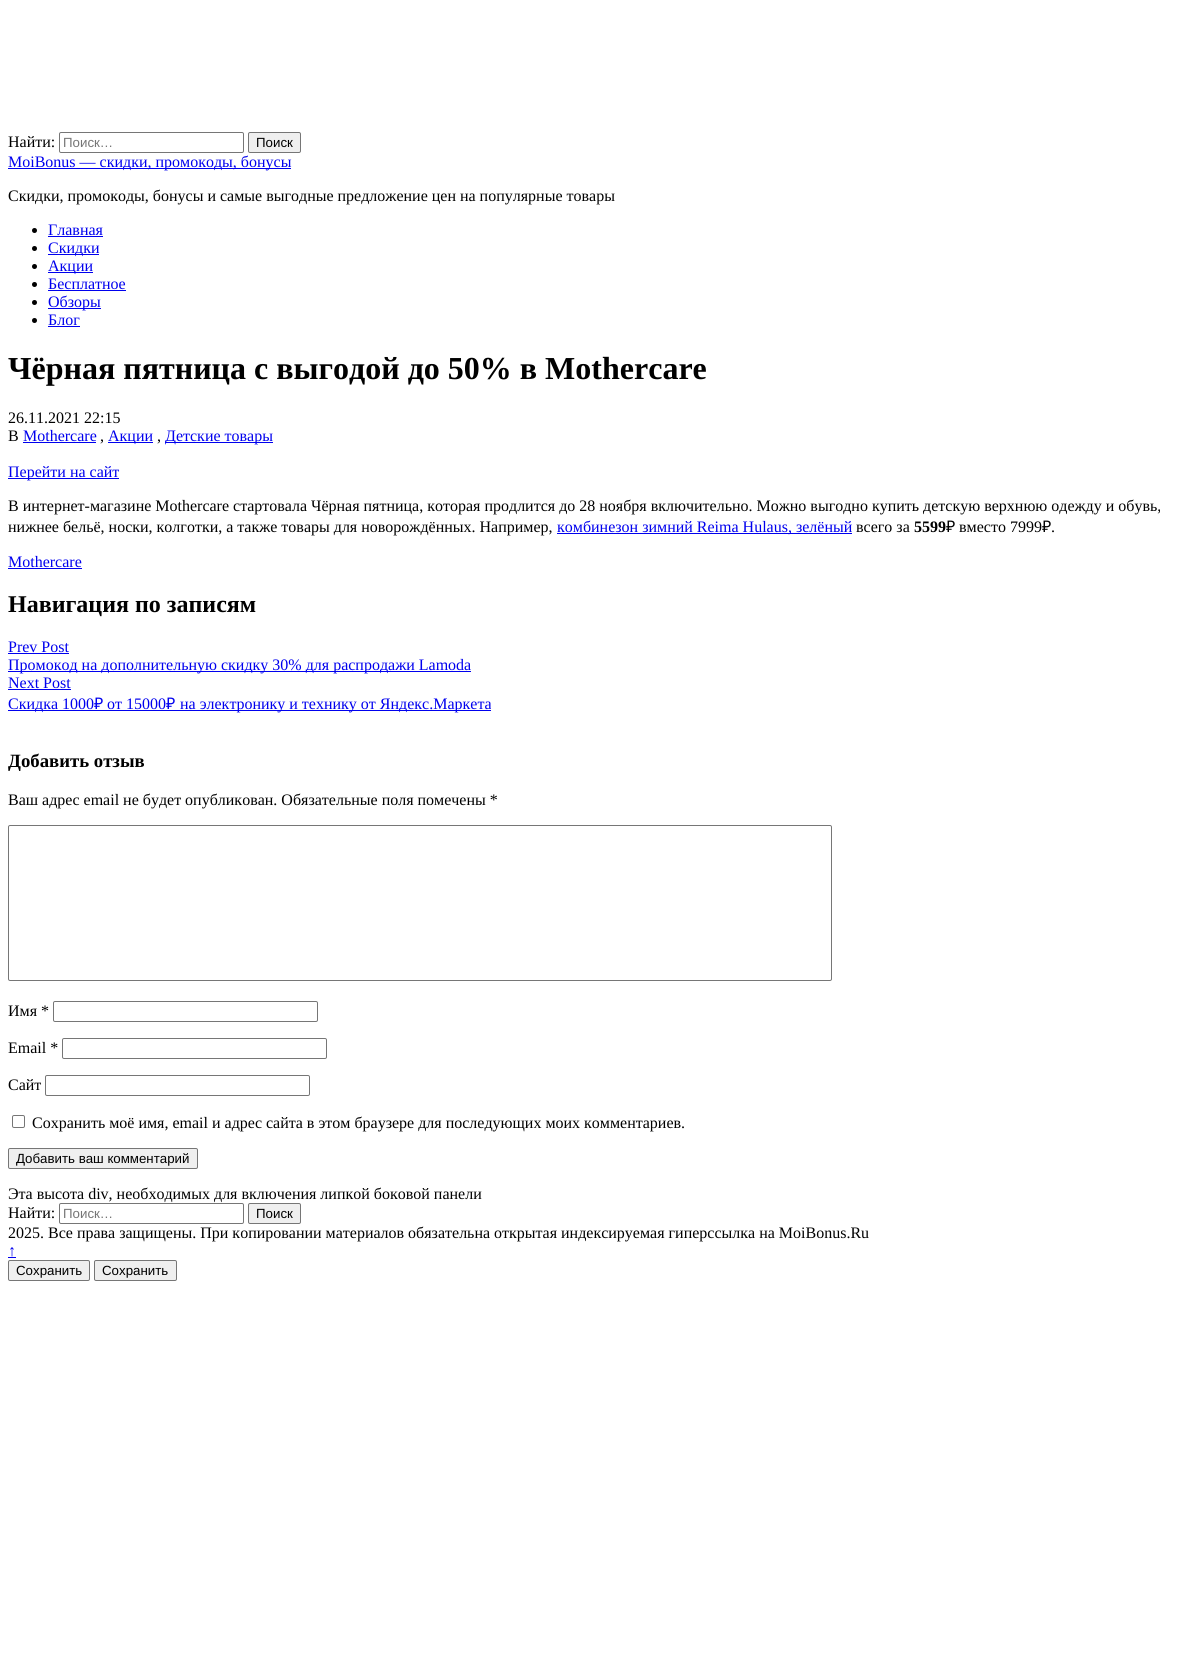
import math
import cairo

surface = cairo.ImageSurface(cairo.FORMAT_RGB24, 1201, 1678)
cr = cairo.Context(surface)
options = cairo.FontOptions()
options.set_hint_metrics(cairo.HINT_METRICS_OFF)
options.set_hint_style(cairo.HINT_STYLE_NONE)
cr.set_font_options(options)
cr.set_miter_limit(4)


def rgb(code):
    cr.set_source_rgb(*(v / 255 for v in bytes.fromhex(code[-6:])))


def rrect(x, y, w, h, r):
    cr.new_sub_path()
    for i, (u, v) in enumerate([(x + w - r, y + h - r), (x + r, y + h - r), (x + r, y + r), (x + w - r, y + r)]):
        cr.arc(u, v, r, i * math.pi / 2, (i + 1) * math.pi / 2)
    cr.close_path()


rgb("#ffffff")
cr.paint()
rrect(59.5, 132.5, 184, 20, 1.5)
rgb("#767676")
cr.set_line_width(1)
cr.stroke()
rgb("#efefef")
rrect(248.5, 132.5, 52, 20, 1.5)
cr.fill_preserve()
rgb("#767676")
cr.stroke()
rgb("#0000ee")
cr.rectangle(8, 168, 283, 1)
cr.fill()
rgb("#000000")
cr.arc(34.5, 230.5, 2.5, 0, 2 * math.pi)
cr.fill()
rgb("#0000ee")
cr.rectangle(48, 236, 55, 1)
cr.fill()
rgb("#000000")
cr.arc(34.5, 248.5, 2.5, 0, 2 * math.pi)
cr.fill()
rgb("#0000ee")
cr.rectangle(48, 254, 51, 1)
cr.fill()
rgb("#000000")
cr.arc(34.5, 266.5, 2.5, 0, 2 * math.pi)
cr.fill()
rgb("#0000ee")
cr.rectangle(48, 272, 45, 1)
cr.fill()
rgb("#000000")
cr.arc(34.5, 284.5, 2.5, 0, 2 * math.pi)
cr.fill()
rgb("#0000ee")
cr.rectangle(48, 290, 78, 1)
cr.fill()
rgb("#000000")
cr.arc(34.5, 302.5, 2.5, 0, 2 * math.pi)
cr.fill()
rgb("#0000ee")
cr.rectangle(48, 308, 53, 1)
cr.fill()
rgb("#000000")
cr.arc(34.5, 320.5, 2.5, 0, 2 * math.pi)
cr.fill()
for x, y, w, h, color in [
    (48, 326, 32, 1, "#0000ee"),
    (23, 442, 73, 1, "#0000ee"),
    (108, 442, 45, 1, "#0000ee"),
    (165, 442, 108, 1, "#0000ee"),
    (8, 478, 111, 1, "#0000ee"),
    (557, 533, 295, 1, "#0000ee"),
    (8, 568, 74, 1, "#0000ee"),
    (8, 653, 61, 1, "#0000ee"),
    (8, 671, 463, 1, "#0000ee"),
    (8, 689, 63, 1, "#0000ee"),
    (8, 710, 483, 1, "#0000ee"),
]:
    rgb(color)
    cr.rectangle(x, y, w, h)
    cr.fill()
rrect(8.5, 825.5, 823, 155, 1.5)
rgb("#767676")
cr.stroke()
rrect(53.5, 1001.5, 264, 20, 1.5)
cr.stroke()
rrect(62.5, 1038.5, 264, 20, 1.5)
cr.stroke()
rrect(45.5, 1075.5, 264, 20, 1.5)
cr.stroke()
rrect(12.5, 1115.5, 12, 12, 1.5)
cr.stroke()
rgb("#efefef")
rrect(8.5, 1148.5, 189, 20, 1.5)
cr.fill_preserve()
rgb("#767676")
cr.stroke()
rrect(59.5, 1203.5, 184, 20, 1.5)
cr.stroke()
rgb("#efefef")
rrect(248.5, 1203.5, 52, 20, 1.5)
cr.fill_preserve()
rgb("#767676")
cr.stroke()
rgb("#0000ee")
cr.rectangle(8, 1257, 8, 1)
cr.fill()
rgb("#efefef")
rrect(8.5, 1260.5, 81, 20, 1.5)
cr.fill_preserve()
rgb("#767676")
cr.stroke()
rgb("#efefef")
rrect(94.5, 1260.5, 82, 20, 1.5)
cr.fill_preserve()
rgb("#767676")
cr.stroke()
cr.select_font_face("Liberation Serif")
cr.set_font_size(16)
rgb("#000000")
cr.move_to(8, 147)
cr.show_text("Найти:")
cr.select_font_face("Liberation Sans")
cr.set_font_size(13.3)
rgb("#757575")
cr.move_to(63, 147)
cr.show_text("Поиск…")
rgb("#000000")
cr.move_to(256, 147)
cr.show_text("Поиск")
cr.select_font_face("Liberation Serif")
cr.set_font_size(16)
rgb("#0000ee")
cr.move_to(8, 167)
cr.show_text("MoiBonus — скидки, промокоды, бонусы")
rgb("#000000")
cr.move_to(8, 201)
cr.show_text("Скидки, промокоды, бонусы и самые выгодные предложение цен на популярные товары")
rgb("#0000ee")
for x, y, s in [
    (48, 235, "Главная"),
    (48, 253, "Скидки"),
    (48, 271, "Акции"),
    (48, 289, "Бесплатное"),
    (48, 307, "Обзоры"),
    (48, 325, "Блог"),
]:
    cr.move_to(x, y)
    cr.show_text(s)
cr.select_font_face("Liberation Serif", cairo.FONT_SLANT_NORMAL, cairo.FONT_WEIGHT_BOLD)
cr.set_font_size(32)
rgb("#000000")
cr.move_to(8, 379)
cr.show_text("Чёрная пятница с выгодой до 50% в Mothercare")
cr.select_font_face("Liberation Serif")
cr.set_font_size(16)
cr.move_to(8, 423)
cr.show_text("26.11.2021 22:15")
cr.move_to(8, 441)
cr.show_text("В")
rgb("#0000ee")
cr.move_to(23, 441)
cr.show_text("Mothercare")
rgb("#000000")
cr.move_to(100, 441)
cr.show_text(",")
rgb("#0000ee")
cr.move_to(108, 441)
cr.show_text("Акции")
rgb("#000000")
cr.move_to(157, 441)
cr.show_text(",")
rgb("#0000ee")
cr.move_to(165, 441)
cr.show_text("Детские товары")
cr.move_to(8, 477)
cr.show_text("Перейти на сайт")
rgb("#000000")
cr.move_to(8, 511)
cr.show_text("В интернет-магазине Mothercare стартовала Чёрная пятница, которая продлится до 28 ноября включительно. Можно выгодно купить детскую верхнюю одежду и обувь,")
cr.move_to(8, 532)
cr.show_text("нижнее бельё, носки, колготки, а также товары для новорождённых. Например,")
rgb("#0000ee")
cr.move_to(557, 532)
cr.show_text("комбинезон зимний Reima Hulaus, зелёный")
rgb("#000000")
cr.move_to(856, 532)
cr.show_text("всего за")
cr.select_font_face("Liberation Serif", cairo.FONT_SLANT_NORMAL, cairo.FONT_WEIGHT_BOLD)
cr.move_to(914, 532)
cr.show_text("5599")
cr.select_font_face("Noto Sans")
cr.move_to(946, 532)
cr.show_text("₽")
cr.select_font_face("Liberation Serif")
cr.move_to(959, 532)
cr.show_text("вместо 7999")
cr.select_font_face("Noto Sans")
cr.move_to(1042, 532)
cr.show_text("₽")
cr.select_font_face("Liberation Serif")
cr.move_to(1051, 532)
cr.show_text(".")
rgb("#0000ee")
cr.move_to(8, 567)
cr.show_text("Mothercare")
cr.select_font_face("Liberation Serif", cairo.FONT_SLANT_NORMAL, cairo.FONT_WEIGHT_BOLD)
cr.set_font_size(24)
rgb("#000000")
cr.move_to(8, 612)
cr.show_text("Навигация по записям")
cr.select_font_face("Liberation Serif")
cr.set_font_size(16)
rgb("#0000ee")
for x, y, s in [
    (8, 652, "Prev Post"),
    (8, 670, "Промокод на дополнительную скидку 30% для распродажи Lamoda"),
    (8, 688, "Next Post"),
    (8, 709, "Скидка 1000"),
]:
    cr.move_to(x, y)
    cr.show_text(s)
cr.select_font_face("Noto Sans")
cr.move_to(94, 709)
cr.show_text("₽")
cr.select_font_face("Liberation Serif")
cr.move_to(107, 709)
cr.show_text("от 15000")
cr.select_font_face("Noto Sans")
cr.move_to(166, 709)
cr.show_text("₽")
cr.select_font_face("Liberation Serif")
cr.move_to(180, 709)
cr.show_text("на электронику и технику от Яндекс.Маркета")
cr.select_font_face("Liberation Serif", cairo.FONT_SLANT_NORMAL, cairo.FONT_WEIGHT_BOLD)
cr.set_font_size(18.75)
rgb("#000000")
cr.move_to(8, 767)
cr.show_text("Добавить отзыв")
cr.select_font_face("Liberation Serif")
cr.set_font_size(16)
for x, y, s in [
    (8, 805, "Ваш адрес email не будет опубликован. Обязательные поля помечены *"),
    (8, 1016, "Имя *"),
    (8, 1053, "Email *"),
    (8, 1090, "Сайт"),
    (32, 1128, "Сохранить моё имя, email и адрес сайта в этом браузере для последующих моих комментариев."),
]:
    cr.move_to(x, y)
    cr.show_text(s)
cr.select_font_face("Liberation Sans")
cr.set_font_size(13.3)
cr.move_to(16, 1163)
cr.show_text("Добавить ваш комментарий")
cr.select_font_face("Liberation Serif")
cr.set_font_size(16)
cr.move_to(8, 1199)
cr.show_text("Эта высота div, необходимых для включения липкой боковой панели")
cr.move_to(8, 1218)
cr.show_text("Найти:")
cr.select_font_face("Liberation Sans")
cr.set_font_size(13.3)
rgb("#757575")
cr.move_to(63, 1218)
cr.show_text("Поиск…")
rgb("#000000")
cr.move_to(256, 1218)
cr.show_text("Поиск")
cr.select_font_face("Liberation Serif")
cr.set_font_size(16)
cr.move_to(8, 1238)
cr.show_text("2025. Все права защищены. При копировании материалов обязательна открытая индексируемая гиперссылка на MoiBonus.Ru")
rgb("#0000ee")
cr.move_to(8, 1256)
cr.show_text("↑")
cr.select_font_face("Liberation Sans")
cr.set_font_size(13.3)
rgb("#000000")
cr.move_to(16, 1275)
cr.show_text("Сохранить")
cr.move_to(102, 1275)
cr.show_text("Сохранить")
surface.write_to_png("page.png")
